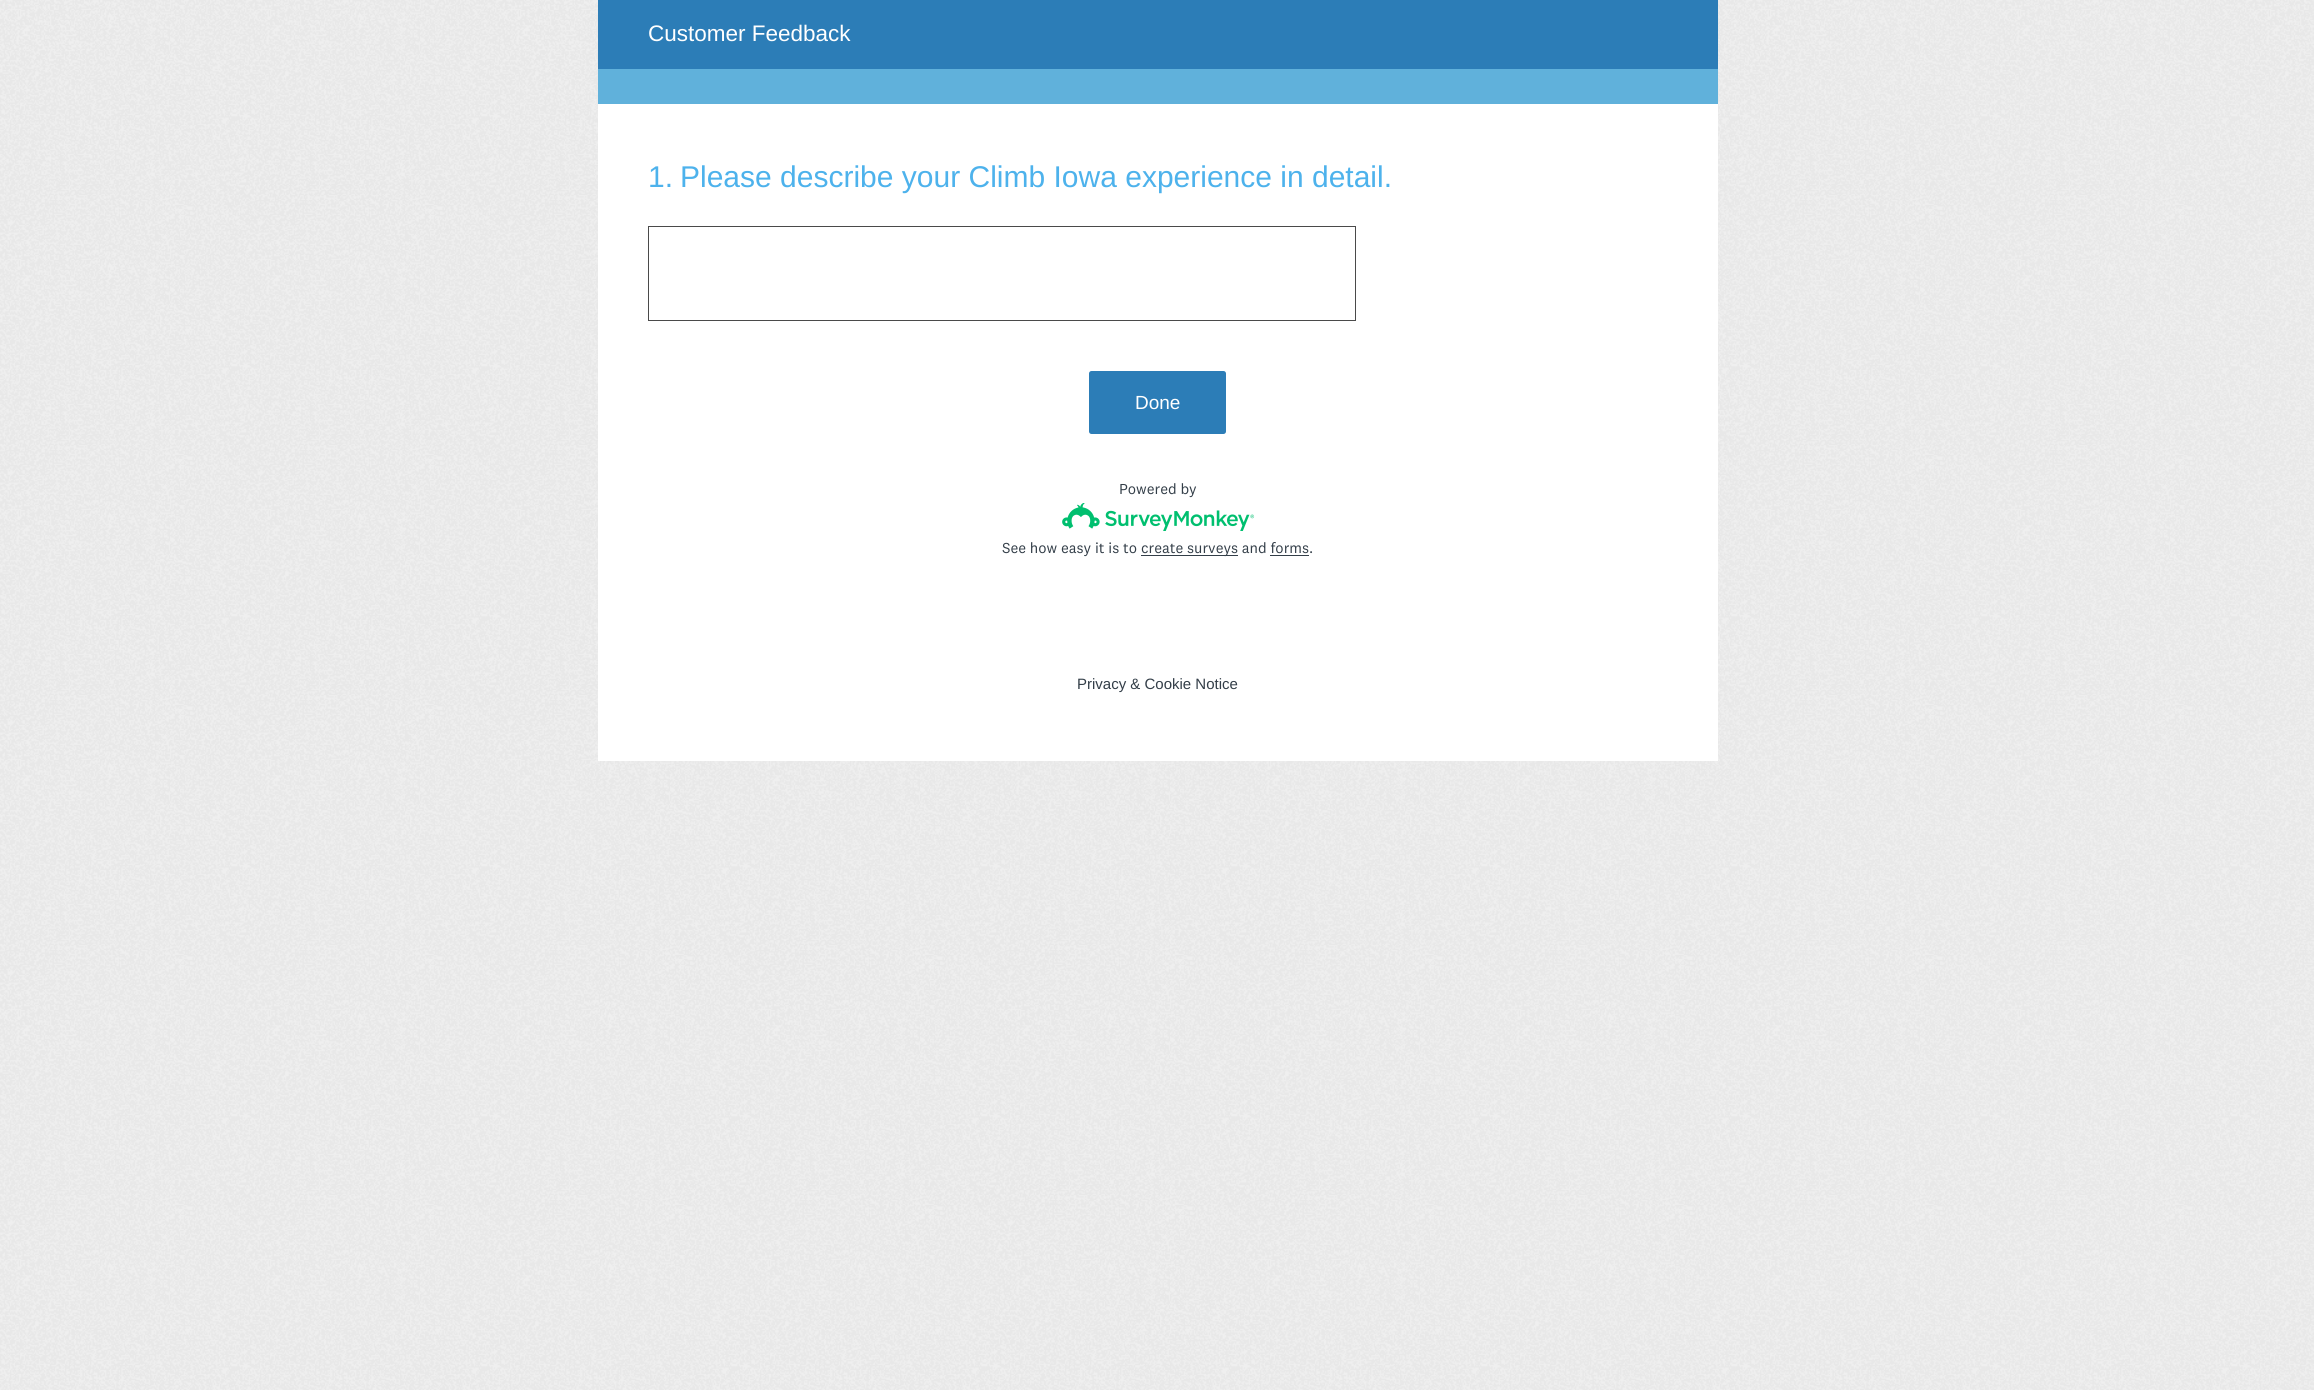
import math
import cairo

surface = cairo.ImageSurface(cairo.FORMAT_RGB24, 2314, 1390)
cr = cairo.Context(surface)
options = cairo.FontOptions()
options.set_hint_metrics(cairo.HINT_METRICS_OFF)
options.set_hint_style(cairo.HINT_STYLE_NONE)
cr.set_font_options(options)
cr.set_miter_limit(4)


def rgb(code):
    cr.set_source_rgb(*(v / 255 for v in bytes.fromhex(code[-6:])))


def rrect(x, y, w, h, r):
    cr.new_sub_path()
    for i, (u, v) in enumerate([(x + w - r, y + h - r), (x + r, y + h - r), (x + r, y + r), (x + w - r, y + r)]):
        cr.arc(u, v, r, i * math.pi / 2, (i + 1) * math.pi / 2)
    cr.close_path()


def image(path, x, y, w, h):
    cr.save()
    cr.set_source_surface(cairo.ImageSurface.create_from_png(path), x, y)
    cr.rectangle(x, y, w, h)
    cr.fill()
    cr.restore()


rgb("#ffffff")
cr.paint()
image("img/1.png", 0, 0, 2314, 1390)
for x, y, w, h, color in [
    (598, 0, 1120, 69, "#2c7db7"),
    (598, 104, 1120, 657, "#ffffff"),
    (598, 69, 1120, 35, "#60b1db"),
]:
    rgb(color)
    cr.rectangle(x, y, w, h)
    cr.fill()
cr.rectangle(648.5, 226.5, 707, 94)
rgb("#4a4a4a")
cr.set_line_width(1)
cr.stroke()
rgb("#2c7db7")
rrect(1089, 371, 137, 63, 2.5)
cr.fill()
image("img/2.png", 1062, 503, 193, 28)
rgb("#333e48")
cr.rectangle(1141, 555, 97, 1)
cr.fill()
cr.rectangle(1270, 555, 39, 1)
cr.fill()
cr.select_font_face("Liberation Sans")
cr.set_font_size(22.5)
rgb("#ffffff")
cr.move_to(648, 41)
cr.show_text("Customer Feedback")
cr.set_font_size(30)
rgb("#4db2ec")
cr.move_to(648, 187)
cr.show_text("1.")
cr.move_to(680, 187)
cr.show_text("Please describe your Climb Iowa experience in detail.")
cr.set_font_size(19)
rgb("#ffffff")
cr.move_to(1135, 409)
cr.show_text("Done")
cr.select_font_face("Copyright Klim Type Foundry")
cr.set_font_size(15)
rgb("#333e48")
for x, y, s in [
    (1119, 494, "Powered by"),
    (1002, 553, "See how easy it is to"),
    (1141, 553, "create surveys and forms."),
]:
    cr.move_to(x, y)
    cr.show_text(s)
cr.select_font_face("Liberation Sans")
cr.move_to(1077, 689)
cr.show_text("Privacy & Cookie Notice")
surface.write_to_png("page.png")
